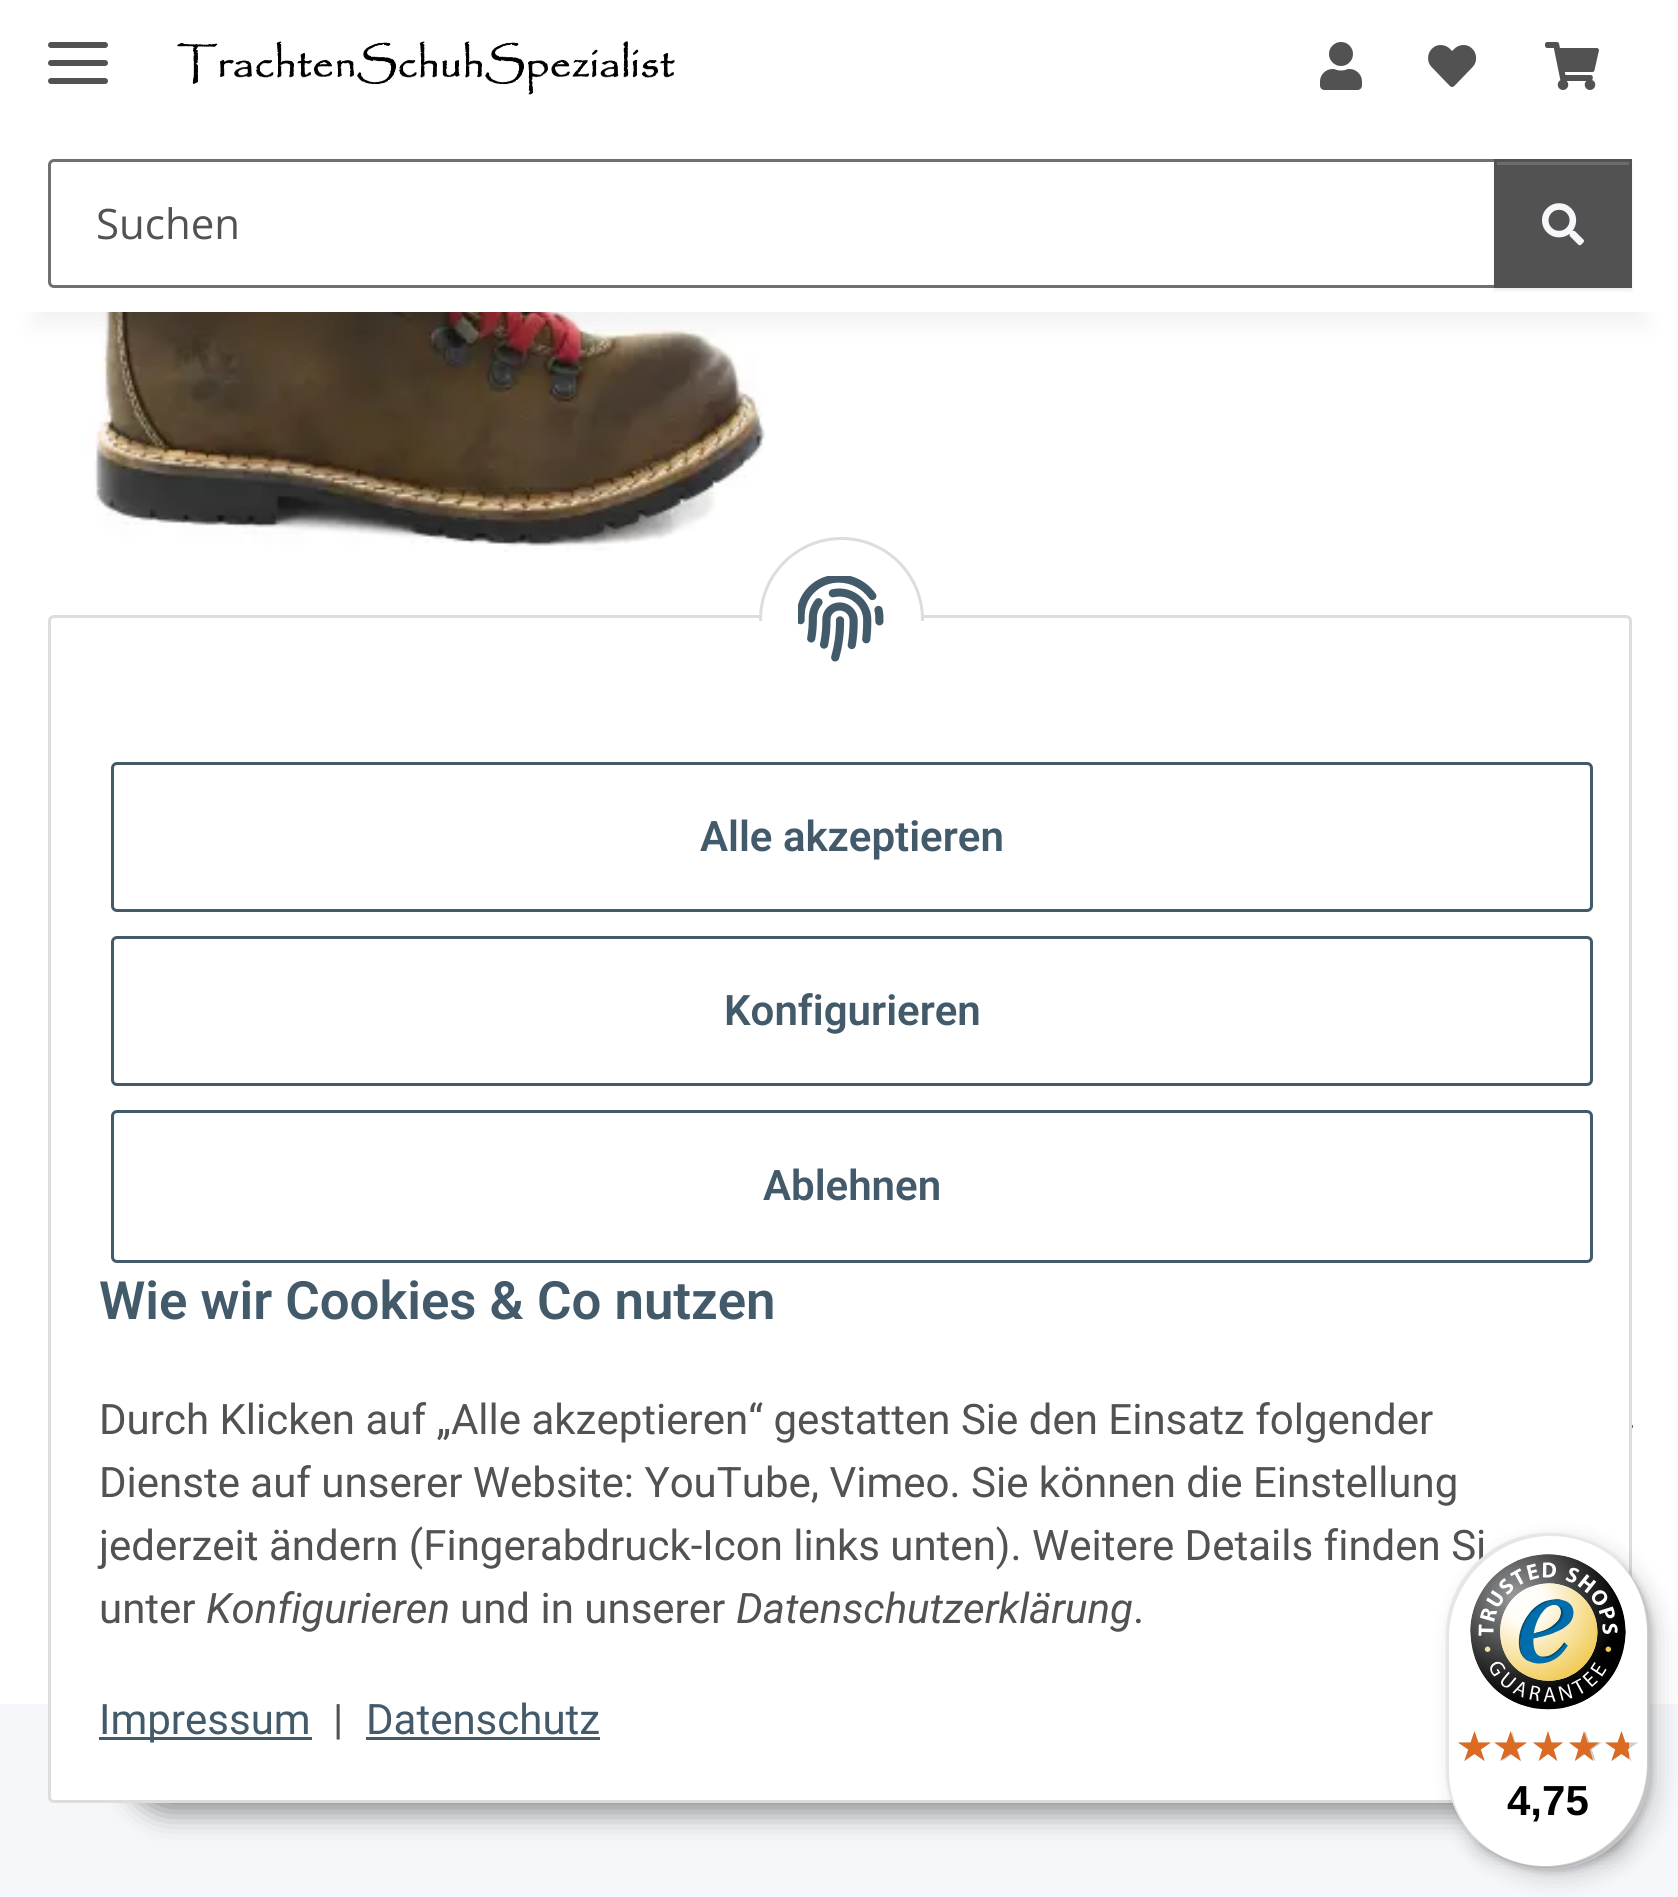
import math
import cairo

surface = cairo.ImageSurface(cairo.FORMAT_RGB24, 1678, 1897)
cr = cairo.Context(surface)
options = cairo.FontOptions()
options.set_hint_metrics(cairo.HINT_METRICS_OFF)
options.set_hint_style(cairo.HINT_STYLE_NONE)
cr.set_font_options(options)
cr.set_miter_limit(4)


def rgb(code):
    cr.set_source_rgb(*(v / 255 for v in bytes.fromhex(code[-6:])))


def rrect(x, y, w, h, r):
    cr.new_sub_path()
    for i, (u, v) in enumerate([(x + w - r, y + h - r), (x + r, y + h - r), (x + r, y + r), (x + w - r, y + r)]):
        cr.arc(u, v, r, i * math.pi / 2, (i + 1) * math.pi / 2)
    cr.close_path()


def soft_shadow(x, y, w, h, r, blur, alpha):
    cr.push_group_with_content(cairo.CONTENT_ALPHA)
    cr.set_operator(cairo.OPERATOR_SOURCE)
    for i in range(15, -16, -2):
        e = blur * i / 6
        if min(w, h) + 2 * e > 0:
            cr.set_source_rgba(0, 0, 0, alpha * math.erfc((i - 1) / 8.5) / 2)
            rrect(x - e, y - e, w + 2 * e, h + 2 * e, max(0, min(r + e + blur * .6, min(w, h) / 2 + e)))
            cr.fill()
    cr.mask(cr.pop_group())


def image(path, x, y, w, h):
    cr.save()
    cr.set_source_surface(cairo.ImageSurface.create_from_png(path), x, y)
    cr.rectangle(x, y, w, h)
    cr.fill()
    cr.restore()


rgb("#f5f7fa")
cr.paint()
rgb("#ffffff")
cr.rectangle(0, 312, 1678, 1392)
cr.fill()
image("img/6.png", 80, 312, 685, 240)
rgb("#000000")
soft_shadow(36, 84, 1608, 240, 0, 13.5, 0.06)
rgb("#ffffff")
cr.rectangle(0, 0, 1678, 312)
cr.fill()
rgb("#525252")
rrect(48, 60, 60, 6, 3)
cr.fill()
rrect(48, 42, 60, 6, 3)
cr.fill()
rrect(48, 78, 60, 6, 3)
cr.fill()
image("img/1.png", 177, 41, 498, 54)
image("img/2.png", 1320, 42, 42, 48)
image("img/3.png", 1428, 45, 49, 42)
image("img/4.png", 1545, 42, 54, 48)
cr.new_path()
cr.move_to(54, 160.5)
cr.line_to(1495.5, 160.5)
cr.line_to(1495.5, 286.5)
cr.line_to(54, 286.5)
cr.curve_to(51.5, 286.5, 49.5, 284.5, 49.5, 282)
cr.line_to(49.5, 165)
cr.curve_to(49.5, 162.5, 51.5, 160.5, 54, 160.5)
cr.close_path()
rgb("#707070")
cr.set_line_width(3)
cr.stroke()
rgb("#000000")
soft_shadow(1494, 162, 138, 129, 0, 1.5, 0.07)
rgb("#525252")
cr.rectangle(1494, 159, 138, 129)
cr.fill()
rgb("#6c6c6c")
cr.rectangle(1497, 162, 132, 3)
cr.fill()
image("img/5.png", 1542, 203, 42, 43)
image("img/7.png", 1632, 1424, 2, 5)
rgb("#000000")
soft_shadow(129, 1716, 1422, 96, 48, 15, 0.45)
soft_shadow(1479, 1719, 141, 132, 6, 12, 0.2)
rgb("#ffffff")
rrect(49.5, 616.5, 1581, 1185, 4.5)
cr.fill_preserve()
rgb("#dddddd")
cr.stroke()
rgb("#ffffff")
cr.arc(841.5, 619.5, 81, 0, 2 * math.pi)
cr.fill_preserve()
rgb("#dddddd")
cr.stroke()
rgb("#ffffff")
cr.rectangle(759, 621, 165, 81)
cr.fill()
image("img/8.png", 798, 576, 86, 86)
rrect(112.5, 763.5, 1479, 147, 4.5)
rgb("#435a6b")
cr.stroke()
rrect(112.5, 937.5, 1479, 147, 4.5)
cr.stroke()
rrect(112.5, 1111.5, 1479, 150, 4.5)
cr.stroke()
cr.rectangle(99, 1737, 213, 3)
cr.fill()
cr.rectangle(366, 1737, 234, 3)
cr.fill()
rgb("#000000")
soft_shadow(1455, 1542, 204, 336, 102, 12, 0.15)
soft_shadow(1449, 1536, 204, 336, 102, 3, 0.15)
cr.select_font_face("Open Sans")
cr.set_font_size(42)
rgb("#525252")
cr.move_to(96, 239)
cr.show_text("Suchen")
cr.select_font_face("Roboto SemiBold")
rgb("#435a6b")
for x, y, s in [
    (700, 851, "Alle akzeptieren"),
    (724, 1025, "Konfigurieren"),
    (763, 1200, "Ablehnen"),
]:
    cr.move_to(x, y)
    cr.show_text(s)
cr.set_font_size(52.75)
cr.move_to(99, 1319)
cr.show_text("Wie wir Cookies & Co nutzen")
cr.select_font_face("Roboto")
cr.set_font_size(42)
rgb("#525252")
for x, y, s in [
    (99, 1434, "Durch Klicken auf „Alle akzeptieren“ gestatten Sie den Einsatz folgender"),
    (99, 1497, "Dienste auf unserer Website: YouTube, Vimeo. Sie können die Einstellung"),
    (99, 1560, "jederzeit ändern (Fingerabdruck-Icon links unten). Weitere Details finden Si"),
    (99, 1623, "unter"),
]:
    cr.move_to(x, y)
    cr.show_text(s)
cr.select_font_face("Roboto", cairo.FONT_SLANT_ITALIC)
cr.move_to(206, 1623)
cr.show_text("Konfigurieren")
cr.select_font_face("Roboto")
cr.move_to(460, 1623)
cr.show_text("und in unserer")
cr.select_font_face("Roboto", cairo.FONT_SLANT_ITALIC)
cr.move_to(736, 1623)
cr.show_text("Datenschutzerklärung")
cr.select_font_face("Roboto")
cr.move_to(1133, 1623)
cr.show_text(".")
rgb("#435a6b")
cr.move_to(99, 1734)
cr.show_text("Impressum")
rgb("#525252")
cr.move_to(333, 1734)
cr.show_text("|")
rgb("#435a6b")
cr.move_to(366, 1734)
cr.show_text("Datenschutz")
rgb("#ffffff")
rrect(1446, 1533, 204, 336, 102)
cr.fill()
cr.set_source_rgba(0, 0, 0, 0.1)
cr.new_path()
cr.move_to(1551, 1536)
cr.curve_to(1580, 1536, 1606, 1548, 1624, 1568)
cr.curve_to(1606, 1546, 1578, 1533, 1548, 1533)
cr.curve_to(1492, 1533, 1446, 1579, 1446, 1635)
cr.line_to(1446, 1767)
cr.curve_to(1446, 1797, 1459, 1825, 1481, 1843)
cr.curve_to(1461, 1825, 1449, 1799, 1449, 1770)
cr.line_to(1449, 1638)
cr.curve_to(1449, 1582, 1495, 1536, 1551, 1536)
cr.close_path()
cr.fill()
cr.set_source_rgba(0, 0, 0, 0.2)
cr.new_path()
cr.move_to(1472, 1834)
cr.curve_to(1490, 1856, 1518, 1869, 1548, 1869)
cr.curve_to(1604, 1869, 1650, 1823, 1650, 1767)
cr.line_to(1650, 1635)
cr.curve_to(1650, 1605, 1637, 1577, 1615, 1559)
cr.curve_to(1635, 1577, 1647, 1603, 1647, 1632)
cr.line_to(1647, 1764)
cr.curve_to(1647, 1820, 1601, 1866, 1545, 1866)
cr.curve_to(1516, 1866, 1490, 1854, 1472, 1834)
cr.close_path()
cr.fill()
cr.set_source_rgba(0.196, 0.196, 0.196, 0.2)
cr.new_path()
cr.move_to(1477, 1840)
cr.curve_to(1495, 1858, 1520, 1869, 1548, 1869)
cr.curve_to(1604, 1869, 1650, 1823, 1650, 1767)
cr.line_to(1650, 1635)
cr.curve_to(1650, 1607, 1639, 1582, 1621, 1564)
cr.curve_to(1638, 1582, 1648, 1607, 1648, 1633)
cr.line_to(1648, 1765)
cr.curve_to(1648, 1822, 1603, 1867, 1546, 1867)
cr.curve_to(1520, 1867, 1495, 1857, 1477, 1840)
cr.close_path()
cr.fill()
cr.set_source_rgba(1, 1, 1, 0.3)
cr.new_path()
cr.move_to(1496, 1855)
cr.curve_to(1511, 1864, 1529, 1869, 1548, 1869)
cr.curve_to(1604, 1869, 1650, 1823, 1650, 1767)
cr.line_to(1650, 1635)
cr.curve_to(1650, 1600, 1632, 1569, 1605, 1551)
cr.curve_to(1631, 1569, 1648, 1599, 1648, 1634)
cr.line_to(1648, 1766)
cr.curve_to(1648, 1822, 1603, 1868, 1546, 1868)
cr.curve_to(1528, 1868, 1511, 1863, 1496, 1855)
cr.close_path()
cr.fill()
image("img/9.png", 1470, 1554, 156, 156)
image("img/10.png", 1458, 1731, 33, 30)
image("img/11.png", 1497, 1731, 30, 30)
image("img/11.png", 1533, 1731, 30, 30)
image("img/10.png", 1569, 1731, 33, 30)
image("img/10.png", 1605, 1731, 33, 30)
image("img/12.png", 1458, 1731, 33, 30)
image("img/13.png", 1494, 1731, 33, 30)
image("img/14.png", 1533, 1731, 30, 30)
image("img/15.png", 1569, 1731, 30, 30)
image("img/16.png", 1605, 1731, 24, 30)
cr.select_font_face("Liberation Sans", cairo.FONT_SLANT_NORMAL, cairo.FONT_WEIGHT_BOLD)
rgb("#000000")
cr.move_to(1507, 1815)
cr.show_text("4,75")
surface.write_to_png("page.png")
